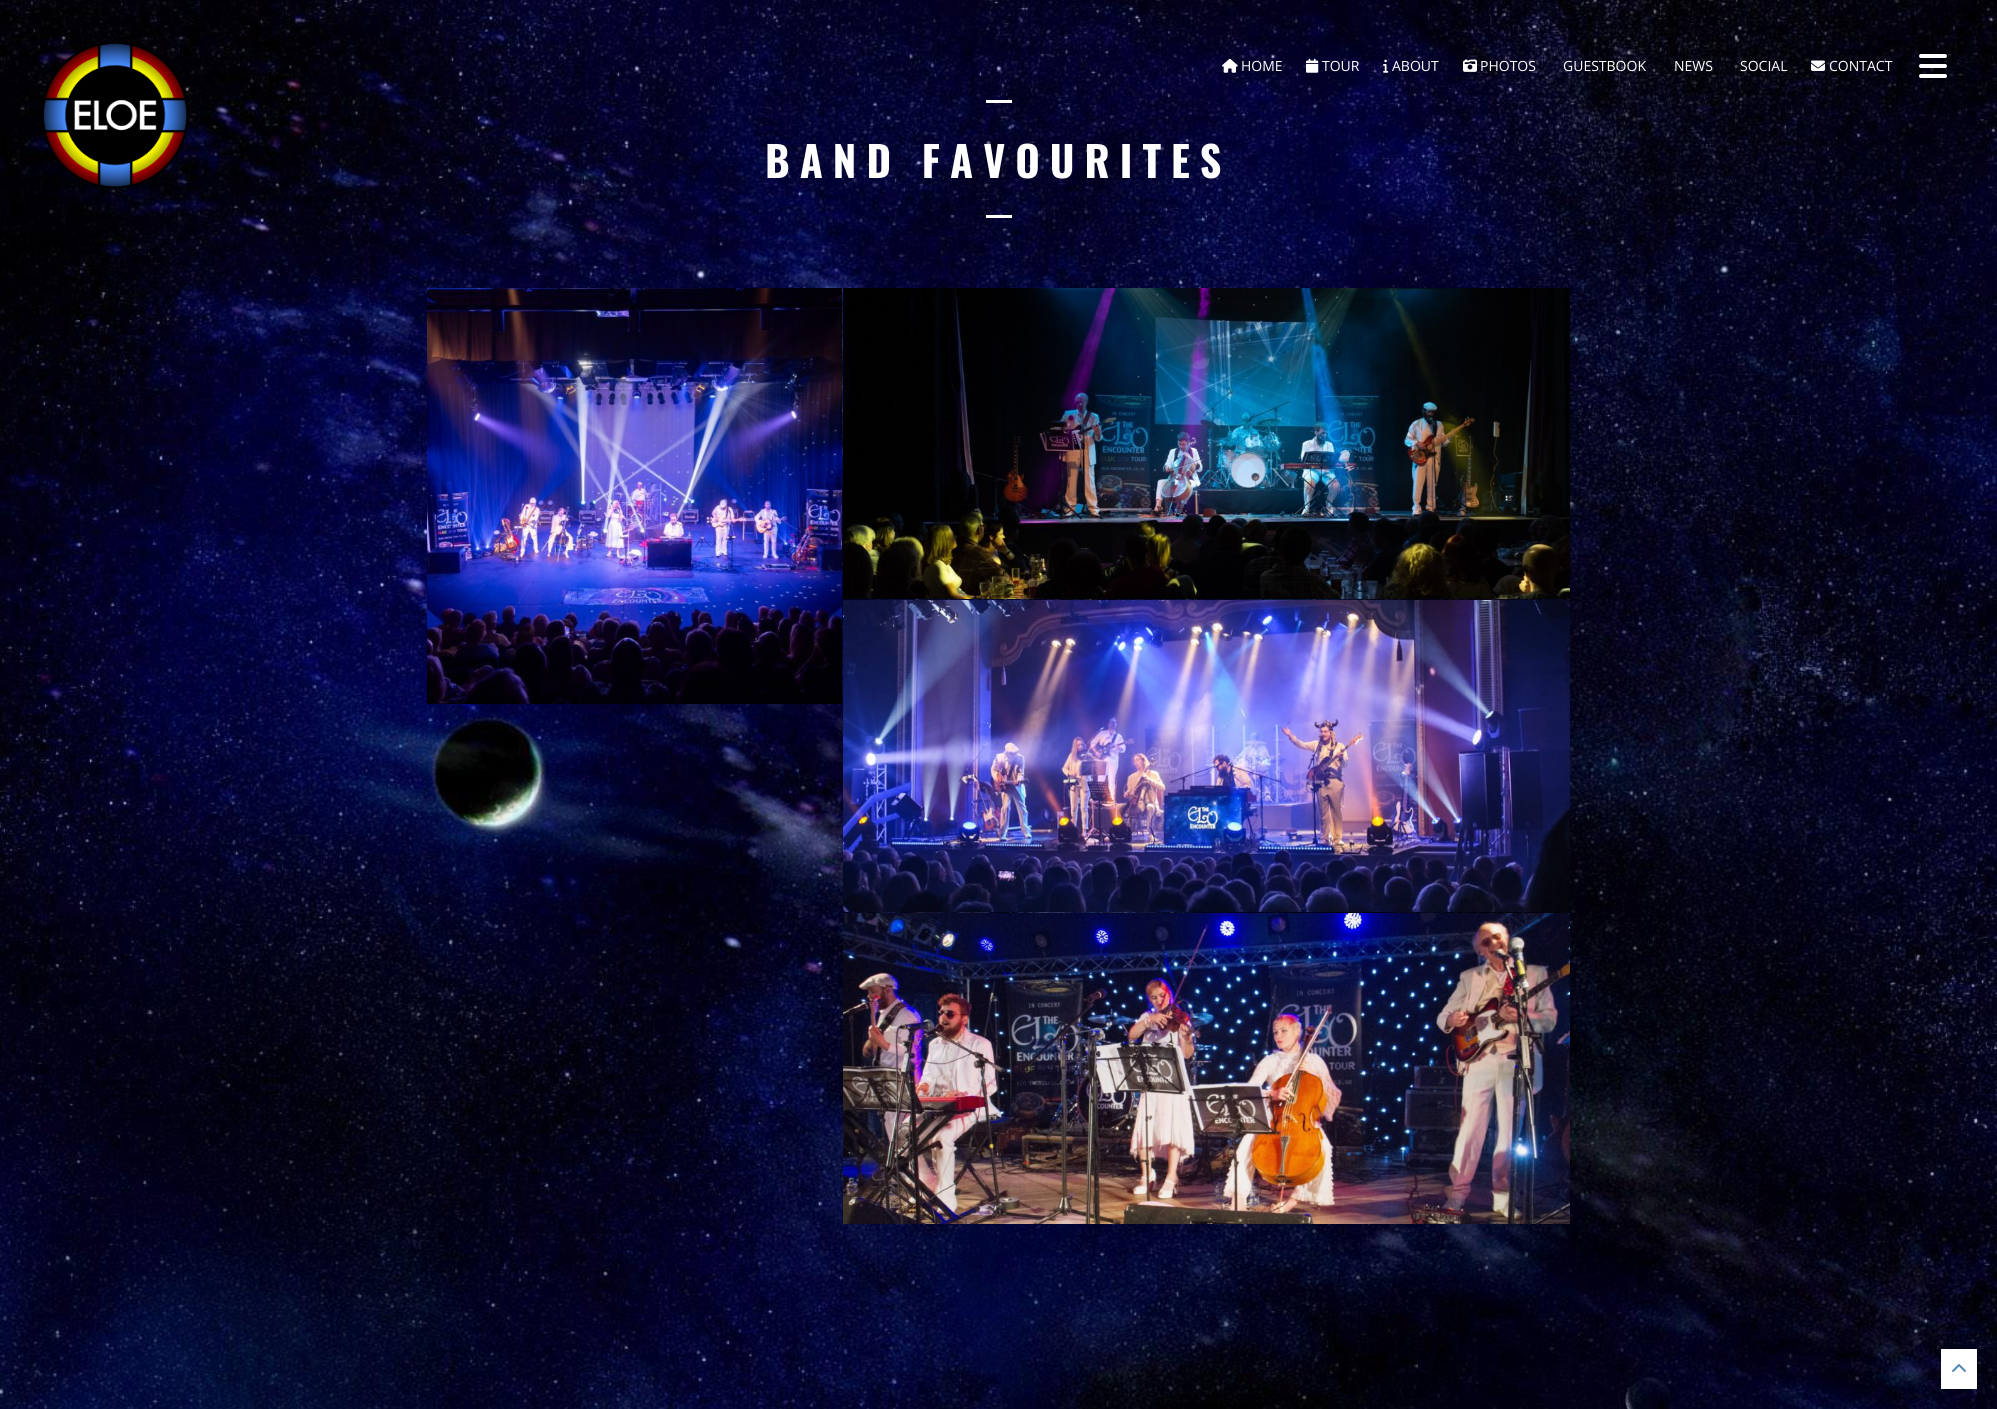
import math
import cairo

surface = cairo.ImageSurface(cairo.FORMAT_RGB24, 1997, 1409)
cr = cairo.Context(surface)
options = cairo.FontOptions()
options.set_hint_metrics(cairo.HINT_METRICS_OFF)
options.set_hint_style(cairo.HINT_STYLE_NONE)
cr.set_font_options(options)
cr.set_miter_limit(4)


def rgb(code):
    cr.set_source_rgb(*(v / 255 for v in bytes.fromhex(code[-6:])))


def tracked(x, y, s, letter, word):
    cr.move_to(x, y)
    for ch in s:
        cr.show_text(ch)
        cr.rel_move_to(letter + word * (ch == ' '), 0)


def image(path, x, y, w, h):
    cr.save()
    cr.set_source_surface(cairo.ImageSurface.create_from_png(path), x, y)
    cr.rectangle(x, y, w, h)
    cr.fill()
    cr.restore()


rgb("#ffffff")
cr.paint()
image("img/8.png", 0, 0, 1997, 1409)
image("img/1.png", 42, 42, 146, 147)
image("img/2.png", 1222, 58, 16, 15)
image("img/3.png", 1306, 58, 13, 15)
image("img/4.png", 1383, 59, 6, 14)
image("img/5.png", 1463, 59, 14, 13)
image("img/6.png", 1811, 60, 14, 11)
image("img/7.png", 1919, 54, 28, 24)
rgb("#ffffff")
cr.rectangle(986, 100, 26, 3)
cr.fill()
cr.rectangle(986, 215, 26, 3)
cr.fill()
image("img/9.png", 427, 288, 415, 416)
image("img/10.png", 843, 288, 727, 311)
image("img/11.png", 843, 600, 727, 312)
image("img/12.png", 843, 913, 727, 311)
cr.rectangle(1941, 1349, 36, 40)
cr.fill()
image("img/13.png", 1952, 1364, 14, 8)
cr.select_font_face("Open Sans")
cr.set_font_size(14)
for x, y, s in [
    (1241, 71, "HOME"),
    (1322, 71, "TOUR"),
    (1392, 71, "ABOUT"),
    (1480, 71, "PHOTOS"),
    (1563, 71, "GUESTBOOK"),
    (1674, 71, "NEWS"),
    (1740, 71, "SOCIAL"),
    (1829, 71, "CONTACT"),
]:
    cr.move_to(x, y)
    cr.show_text(s)
cr.select_font_face("Oswald", cairo.FONT_SLANT_NORMAL, cairo.FONT_WEIGHT_BOLD)
cr.set_font_size(42)
tracked(765, 178, "BAND FAVOURITES", 10, 0)
surface.write_to_png("page.png")
